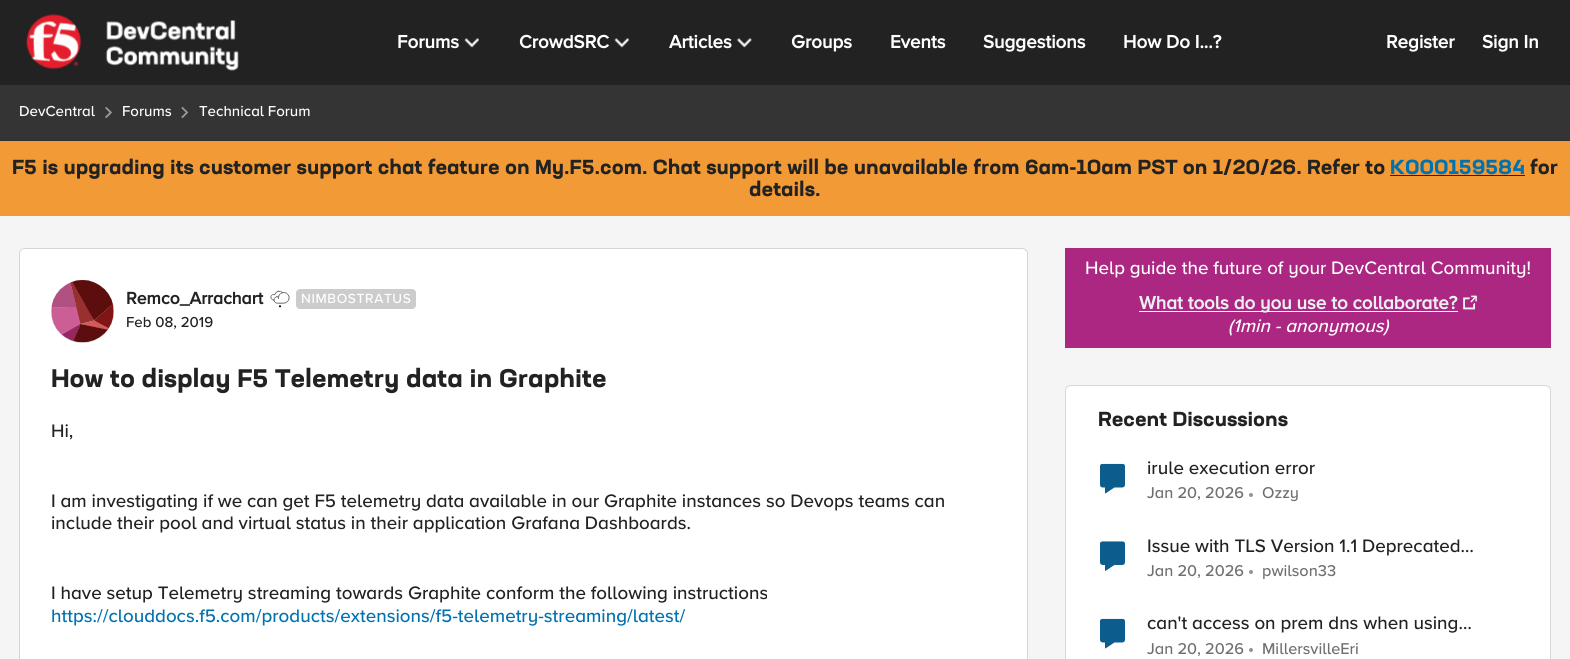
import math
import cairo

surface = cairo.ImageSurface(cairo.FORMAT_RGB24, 1570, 659)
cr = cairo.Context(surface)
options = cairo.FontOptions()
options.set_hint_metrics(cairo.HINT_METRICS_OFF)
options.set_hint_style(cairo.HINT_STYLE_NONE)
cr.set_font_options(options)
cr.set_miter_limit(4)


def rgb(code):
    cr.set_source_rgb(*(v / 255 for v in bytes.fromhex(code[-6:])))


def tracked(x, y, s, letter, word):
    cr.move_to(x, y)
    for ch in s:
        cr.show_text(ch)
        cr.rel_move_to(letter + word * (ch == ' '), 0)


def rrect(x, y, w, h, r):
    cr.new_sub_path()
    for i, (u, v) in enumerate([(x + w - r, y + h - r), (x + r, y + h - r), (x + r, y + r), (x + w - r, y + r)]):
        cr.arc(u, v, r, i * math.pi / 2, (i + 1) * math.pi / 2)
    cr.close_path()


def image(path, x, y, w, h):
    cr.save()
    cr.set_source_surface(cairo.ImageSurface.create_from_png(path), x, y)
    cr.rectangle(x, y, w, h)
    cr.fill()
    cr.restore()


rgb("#f5f5f5")
cr.paint()
rgb("#343434")
cr.rectangle(0, 85, 1570, 55)
cr.fill()
rgb("#222222")
cr.rectangle(0, 0, 1570, 85)
cr.fill()
image("img/1.png", 26, 14, 213, 57)
image("img/2.png", 464, 38, 15, 10)
image("img/2.png", 614, 38, 15, 10)
image("img/3.png", 736, 38, 16, 10)
rgb("#303030")
cr.rectangle(0, 140, 1570, 1)
cr.fill()
image("img/4.png", 105, 107, 7, 11)
image("img/5.png", 181, 107, 7, 11)
rgb("#f29a36")
cr.rectangle(0, 141, 1570, 75)
cr.fill()
rgb("#222222")
cr.rectangle(1390, 175, 135, 1)
cr.fill()
rgb("#ffffff")
rrect(19.5, 248.5, 1008, 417, 5.5)
cr.fill_preserve()
rgb("#d6d6d6")
cr.set_line_width(1)
cr.stroke()
rgb("#d9d9d9")
cr.arc(82.5, 311.5, 31.5, 0, 2 * math.pi)
cr.fill()
image("img/6.png", 51, 280, 63, 63)
image("img/7.png", 270, 290, 20, 18)
rgb("#cccccc")
rrect(296.5, 289.5, 119, 19, 3.5)
cr.fill_preserve()
cr.stroke()
rgb("#ab2782")
cr.rectangle(1065, 248, 486, 100)
cr.fill()
rgb("#ffffff")
cr.rectangle(1139, 311, 319, 1)
cr.fill()
image("img/8.png", 1463, 295, 14, 15)
rrect(1065.5, 385.5, 485, 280, 5.5)
cr.fill_preserve()
rgb("#d6d6d6")
cr.stroke()
image("img/9.png", 1100, 463, 25, 31)
rgb("#949494")
cr.arc(1251, 495, 2, 0, 2 * math.pi)
cr.fill()
image("img/10.png", 1100, 541, 25, 30)
cr.arc(1251, 572, 2, 0, 2 * math.pi)
cr.fill()
image("img/9.png", 1100, 618, 25, 31)
cr.arc(1251, 650, 2, 0, 2 * math.pi)
cr.fill()
cr.select_font_face("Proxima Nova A", cairo.FONT_SLANT_NORMAL, cairo.FONT_WEIGHT_BOLD)
cr.set_font_size(18.75)
rgb("#ffffff")
for x, y, s in [
    (397, 48, "Forums"),
    (519, 48, "CrowdSRC"),
    (669, 48, "Articles"),
    (791, 48, "Groups"),
    (890, 48, "Events"),
    (983, 48, "Suggestions"),
    (1123, 48, "How Do I...?"),
    (1386, 48, "Register"),
    (1482, 48, "Sign In"),
]:
    cr.move_to(x, y)
    cr.show_text(s)
cr.select_font_face("Proxima Nova A Medium")
cr.set_font_size(15)
for x, y, s in [
    (19, 116, "DevCentral"),
    (122, 116, "Forums"),
    (199, 116, "Technical Forum"),
]:
    cr.move_to(x, y)
    cr.show_text(s)
cr.select_font_face("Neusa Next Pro", cairo.FONT_SLANT_NORMAL, cairo.FONT_WEIGHT_BOLD)
cr.set_font_size(20)
rgb("#222222")
cr.move_to(12, 174)
cr.show_text("F5 is upgrading its customer support chat feature on My.F5.com. Chat support will be unavailable from 6am-10am PST on 1/20/26. Refer to")
rgb("#0072b0")
cr.move_to(1390, 174)
cr.show_text("K000159584")
rgb("#222222")
cr.move_to(1530, 174)
cr.show_text("for")
cr.move_to(749, 196)
cr.show_text("details.")
cr.select_font_face("Proxima Nova A", cairo.FONT_SLANT_NORMAL, cairo.FONT_WEIGHT_BOLD)
cr.set_font_size(17.5)
cr.move_to(126, 304)
cr.show_text("Remco_Arrachart")
cr.select_font_face("Proxima Nova A Medium")
cr.set_font_size(13.75)
rgb("#ffffff")
tracked(301, 303, "NIMBOSTRATUS", 0.6, 0)
cr.set_font_size(15)
rgb("#222222")
cr.move_to(126, 327)
cr.show_text("Feb 08, 2019")
cr.select_font_face("Neusa Next Pro", cairo.FONT_SLANT_NORMAL, cairo.FONT_WEIGHT_BOLD)
cr.set_font_size(25)
cr.move_to(51, 387)
cr.show_text("How to display F5 Telemetry data in Graphite")
cr.select_font_face("Proxima Nova A Medium")
cr.set_font_size(18.75)
for x, y, s in [
    (51, 437, "Hi,"),
    (51, 507, "I am investigating if we can get F5 telemetry data available in our Graphite instances so Devops teams can"),
    (51, 529, "include their pool and virtual status in their application Grafana Dashboards."),
    (51, 599, "I have setup Telemetry streaming towards Graphite conform the following instructions"),
]:
    cr.move_to(x, y)
    cr.show_text(s)
rgb("#0072b0")
cr.move_to(51, 622)
cr.show_text("https://clouddocs.f5.com/products/extensions/f5-telemetry-streaming/latest/")
rgb("#ffffff")
cr.move_to(1085, 274)
cr.show_text("Help guide the future of your DevCentral Community!")
cr.select_font_face("Proxima Nova A", cairo.FONT_SLANT_NORMAL, cairo.FONT_WEIGHT_BOLD)
rgb("#ecf0f1")
cr.move_to(1139, 309)
cr.show_text("What tools do you use to collaborate?")
cr.select_font_face("Proxima Nova A Medium", cairo.FONT_SLANT_ITALIC)
rgb("#ffffff")
cr.move_to(1228, 332)
cr.show_text("(1min - anonymous)")
cr.select_font_face("Neusa Next Pro", cairo.FONT_SLANT_NORMAL, cairo.FONT_WEIGHT_BOLD)
cr.set_font_size(20)
rgb("#222222")
cr.move_to(1098, 426)
cr.show_text("Recent Discussions")
cr.select_font_face("Proxima Nova A Medium")
cr.set_font_size(18.75)
cr.move_to(1147, 474)
cr.show_text("irule execution error")
cr.set_font_size(16.25)
rgb("#707070")
cr.move_to(1147, 498)
cr.show_text("Jan 20, 2026")
cr.move_to(1262, 498)
cr.show_text("Ozzy")
cr.set_font_size(18.75)
rgb("#222222")
cr.move_to(1147, 552)
cr.show_text("Issue with TLS Version 1.1 Deprecated…")
cr.set_font_size(16.25)
rgb("#707070")
cr.move_to(1147, 576)
cr.show_text("Jan 20, 2026")
cr.move_to(1262, 576)
cr.show_text("pwilson33")
cr.set_font_size(18.75)
rgb("#222222")
cr.move_to(1147, 629)
cr.show_text("can't access on prem dns when using…")
cr.set_font_size(16.25)
rgb("#707070")
cr.move_to(1147, 654)
cr.show_text("Jan 20, 2026")
cr.move_to(1262, 654)
cr.show_text("MillersvilleEri")
surface.write_to_png("page.png")
